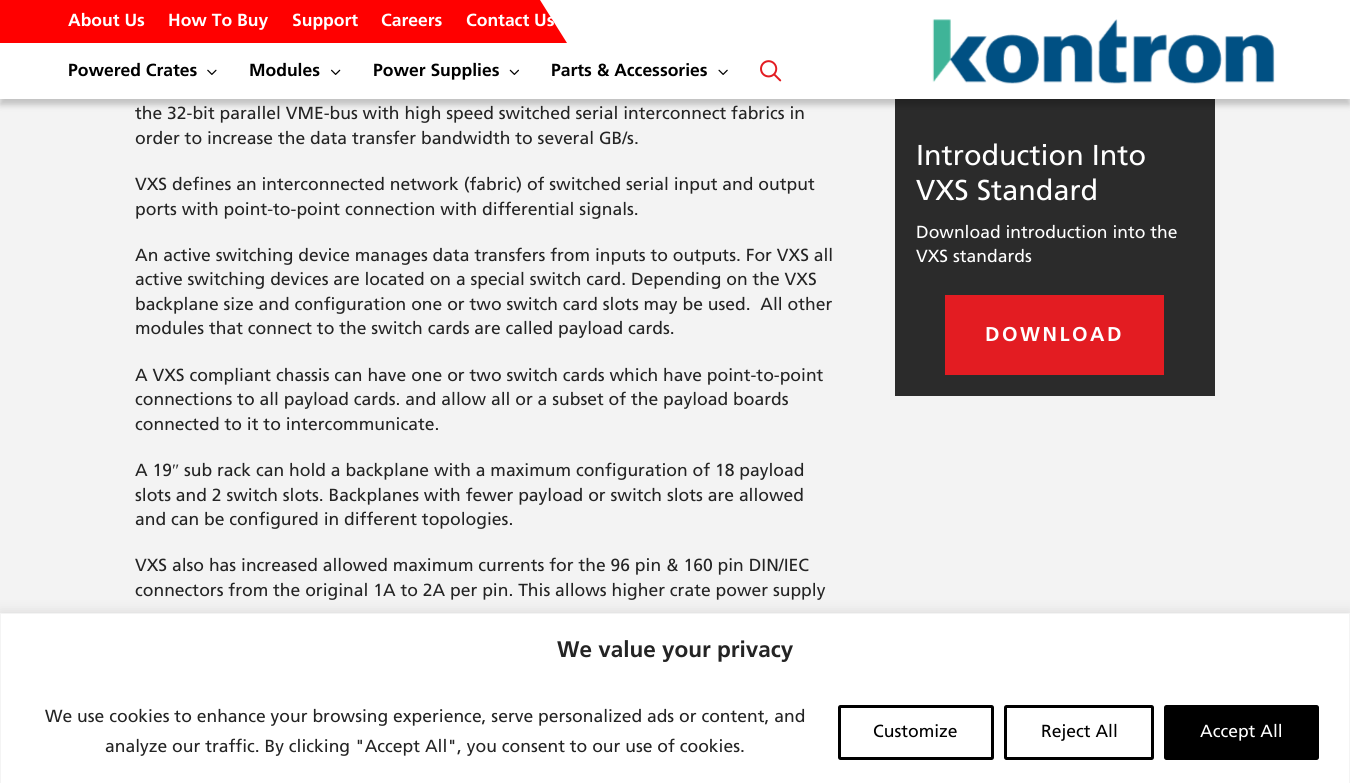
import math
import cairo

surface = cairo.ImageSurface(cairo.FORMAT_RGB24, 1350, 783)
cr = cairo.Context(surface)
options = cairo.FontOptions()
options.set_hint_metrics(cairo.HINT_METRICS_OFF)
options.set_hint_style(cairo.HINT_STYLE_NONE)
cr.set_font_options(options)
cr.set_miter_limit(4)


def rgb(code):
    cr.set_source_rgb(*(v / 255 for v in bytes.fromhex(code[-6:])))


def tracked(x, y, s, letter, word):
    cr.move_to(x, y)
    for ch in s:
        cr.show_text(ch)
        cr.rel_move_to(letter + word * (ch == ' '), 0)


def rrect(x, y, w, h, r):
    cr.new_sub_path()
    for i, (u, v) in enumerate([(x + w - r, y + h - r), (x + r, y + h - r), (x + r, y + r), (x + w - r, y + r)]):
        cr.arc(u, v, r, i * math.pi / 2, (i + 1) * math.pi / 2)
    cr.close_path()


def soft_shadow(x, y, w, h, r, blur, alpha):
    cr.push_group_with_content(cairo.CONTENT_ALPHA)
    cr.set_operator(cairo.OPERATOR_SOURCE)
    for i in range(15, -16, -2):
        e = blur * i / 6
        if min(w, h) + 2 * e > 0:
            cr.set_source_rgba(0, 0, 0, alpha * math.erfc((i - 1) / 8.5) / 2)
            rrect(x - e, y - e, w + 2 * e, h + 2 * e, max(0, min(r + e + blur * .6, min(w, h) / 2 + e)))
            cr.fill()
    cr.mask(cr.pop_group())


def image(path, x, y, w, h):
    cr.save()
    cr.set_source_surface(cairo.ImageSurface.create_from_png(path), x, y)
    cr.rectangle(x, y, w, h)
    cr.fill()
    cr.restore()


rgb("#f3f3f3")
cr.paint()
rgb("#ffffff")
cr.rectangle(0, 0, 1350, 44)
cr.fill()
rgb("#ff0000")
cr.new_path()
cr.move_to(0, 0)
cr.line_to(0, 43)
cr.line_to(567, 43)
cr.line_to(540, 0)
cr.close_path()
cr.fill()
rgb("#2b2b2b")
cr.rectangle(895, 99, 320, 297)
cr.fill()
rgb("#000000")
soft_shadow(0, 50, 1350, 55, 0, 3, 0.2)
rgb("#ffffff")
cr.rectangle(0, 44, 1350, 55)
cr.fill()
image("img/1.png", 207, 69, 10, 6)
image("img/2.png", 331, 69, 10, 6)
image("img/3.png", 509, 69, 10, 6)
image("img/4.png", 718, 69, 10, 6)
image("img/5.png", 760, 60, 22, 22)
image("img/6.png", 932, 19, 343, 65)
rgb("#e31c22")
cr.rectangle(945, 295, 219, 80)
cr.fill()
rgb("#acabab")
soft_shadow(0, 611, 1350, 172, 0, 6, 0.3)
rgb("#ffffff")
cr.rectangle(0.5, 613.5, 1349, 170)
cr.fill_preserve()
rgb("#f4f4f4")
cr.set_line_width(1)
cr.stroke()
rrect(839.5, 706.5, 153, 52, 1)
rgb("#000000")
cr.set_line_width(3)
cr.stroke()
rrect(1005.5, 706.5, 147, 52, 1)
cr.stroke()
rrect(1165.5, 706.5, 152, 52, 1)
cr.fill_preserve()
cr.stroke()
cr.select_font_face("Frutiger", cairo.FONT_SLANT_NORMAL, cairo.FONT_WEIGHT_BOLD)
cr.set_font_size(17.5)
rgb("#ffffff")
for x, y, s in [
    (68, 26, "About Us"),
    (168, 26, "How To Buy"),
    (292, 26, "Support"),
    (381, 26, "Careers"),
    (466, 26, "Contact Us"),
]:
    cr.move_to(x, y)
    cr.show_text(s)
rgb("#000000")
for x, y, s in [
    (68, 76, "Powered Crates"),
    (249, 76, "Modules"),
    (373, 76, "Power Supplies"),
    (551, 76, "Parts & Accessories"),
]:
    cr.move_to(x, y)
    cr.show_text(s)
cr.select_font_face("Frutiger")
rgb("#242424")
for x, y, s in [
    (135, 119, "the 32-bit parallel VME-bus with high speed switched serial interconnect fabrics in"),
    (135, 144, "order to increase the data transfer bandwidth to several GB/s."),
    (135, 190, "VXS defines an interconnected network (fabric) of switched serial input and output"),
    (135, 215, "ports with point-to-point connection with differential signals."),
    (135, 261, "An active switching device manages data transfers from inputs to outputs. For VXS all"),
    (135, 285, "active switching devices are located on a special switch card. Depending on the VXS"),
    (135, 310, "backplane size and configuration one or two switch card slots may be used.  All other"),
    (135, 334, "modules that connect to the switch cards are called payload cards."),
    (135, 381, "A VXS compliant chassis can have one or two switch cards which have point-to-point"),
    (135, 405, "connections to all payload cards. and allow all or a subset of the payload boards"),
    (135, 430, "connected to it to intercommunicate."),
    (135, 476, "A 19"),
]:
    cr.move_to(x, y)
    cr.show_text(s)
cr.select_font_face("Liberation Serif")
cr.move_to(172, 476)
cr.show_text("″")
cr.select_font_face("Frutiger")
for x, y, s in [
    (184, 476, "sub rack can hold a backplane with a maximum configuration of 18 payload"),
    (135, 501, "slots and 2 switch slots. Backplanes with fewer payload or switch slots are allowed"),
    (135, 525, "and can be configured in different topologies."),
    (135, 571, "VXS also has increased allowed maximum currents for the 96 pin & 160 pin DIN/IEC"),
    (135, 596, "connectors from the original 1A to 2A per pin. This allows higher crate power supply"),
]:
    cr.move_to(x, y)
    cr.show_text(s)
cr.set_font_size(28.75)
rgb("#ffffff")
cr.move_to(916, 165)
cr.show_text("Introduction Into")
cr.move_to(916, 200)
cr.show_text("VXS Standard")
cr.set_font_size(17.5)
cr.move_to(916, 238)
cr.show_text("Download introduction into the")
cr.move_to(916, 262)
cr.show_text("VXS standards")
cr.select_font_face("Frutiger", cairo.FONT_SLANT_NORMAL, cairo.FONT_WEIGHT_BOLD)
cr.set_font_size(20)
tracked(985, 341, "DOWNLOAD", 2.5, 0)
cr.set_font_size(22.5)
rgb("#242424")
cr.move_to(557, 657)
cr.show_text("We value your privacy")
cr.select_font_face("Frutiger")
cr.set_font_size(17.5)
cr.move_to(45, 722)
cr.show_text("We use cookies to enhance your browsing experience, serve personalized ads or content, and")
cr.move_to(105, 752)
cr.show_text("analyze our traffic. By clicking \"Accept All\", you consent to our use of cookies.")
rgb("#000000")
cr.move_to(873, 737)
cr.show_text("Customize")
cr.move_to(1041, 737)
cr.show_text("Reject All")
rgb("#ffffff")
cr.move_to(1200, 737)
cr.show_text("Accept All")
surface.write_to_png("page.png")
